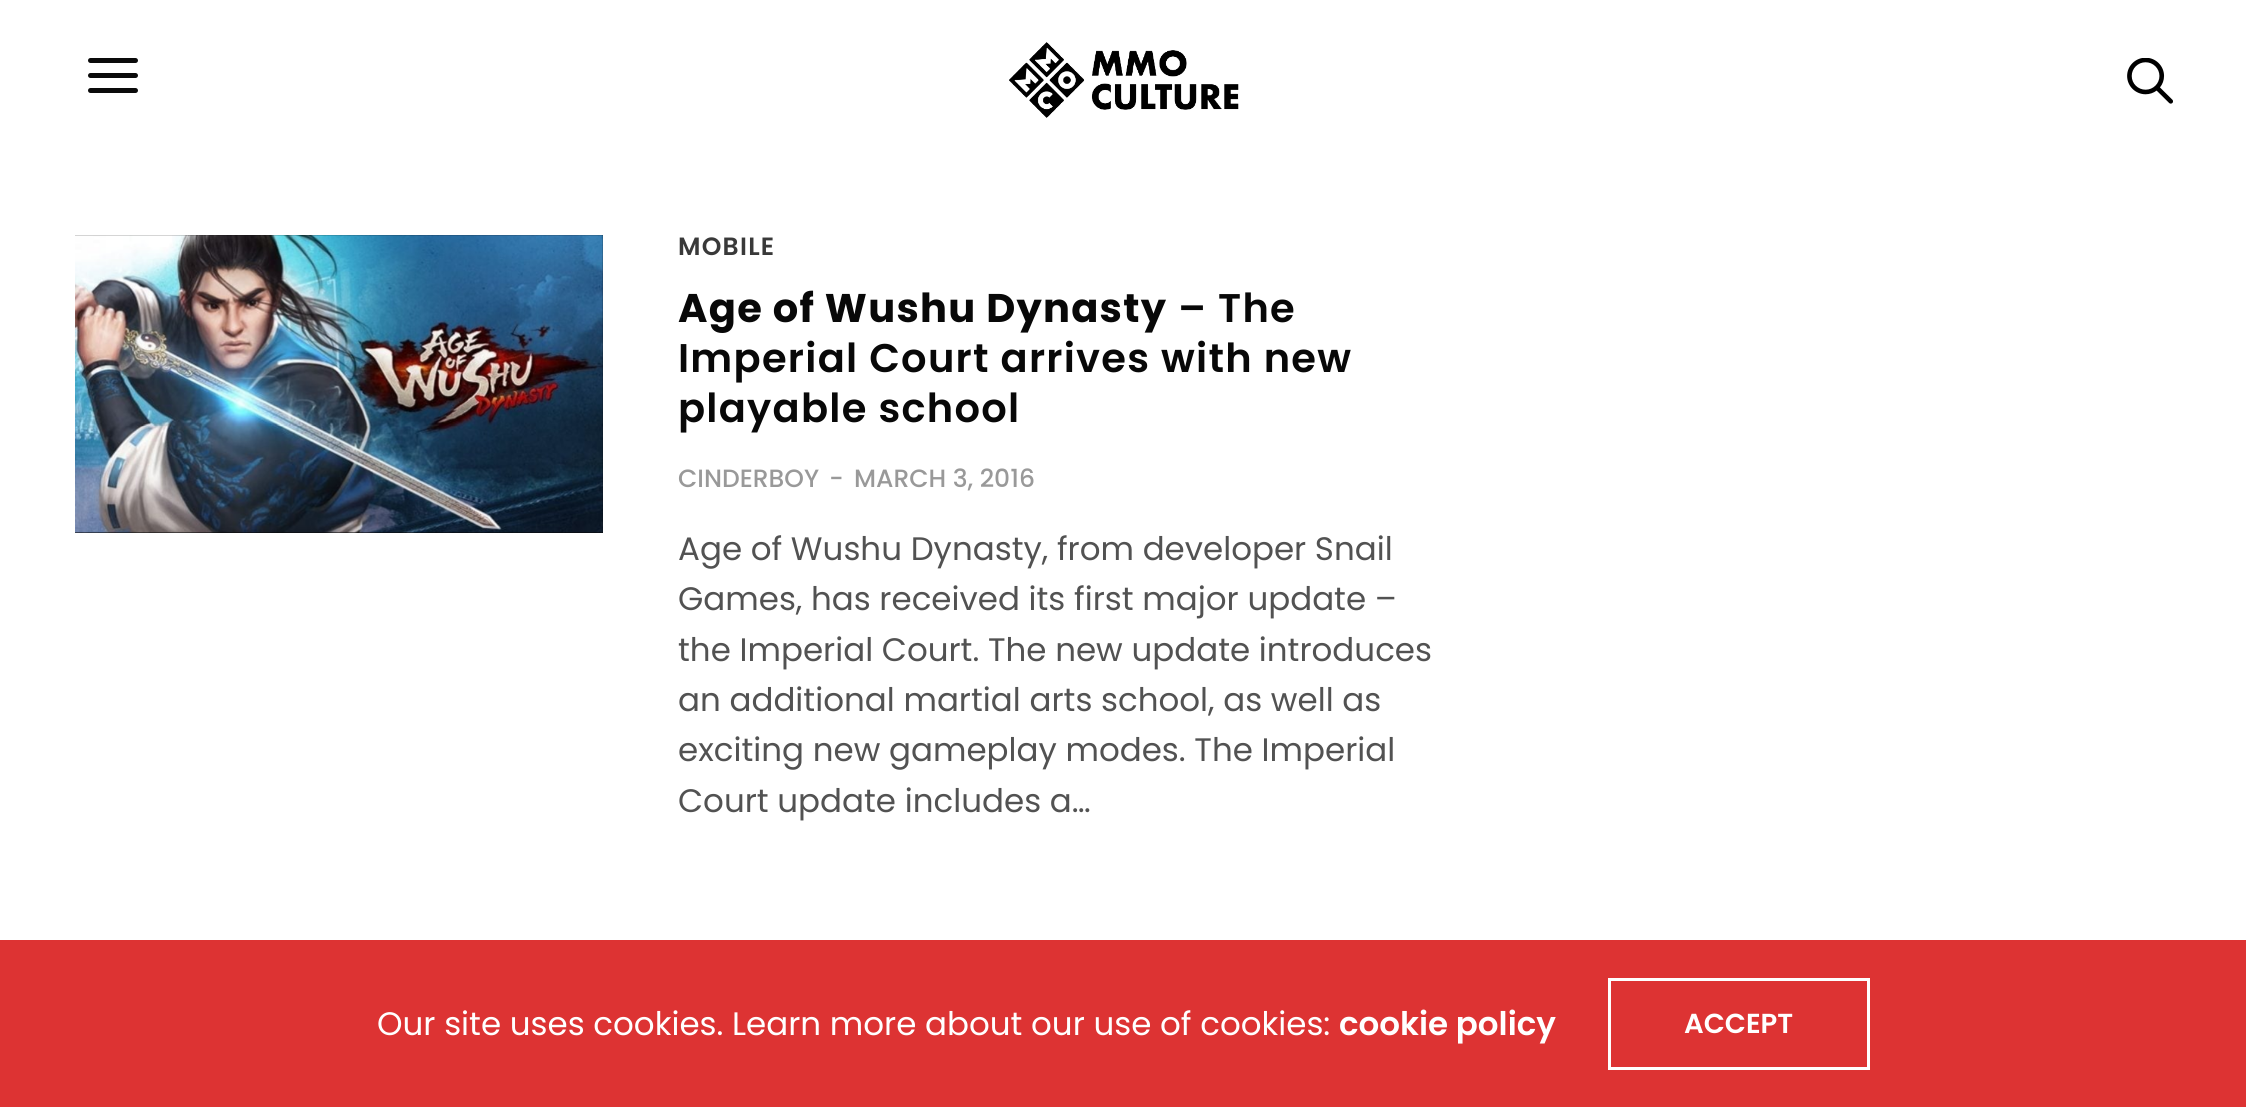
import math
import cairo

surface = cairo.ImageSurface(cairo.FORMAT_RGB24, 2246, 1107)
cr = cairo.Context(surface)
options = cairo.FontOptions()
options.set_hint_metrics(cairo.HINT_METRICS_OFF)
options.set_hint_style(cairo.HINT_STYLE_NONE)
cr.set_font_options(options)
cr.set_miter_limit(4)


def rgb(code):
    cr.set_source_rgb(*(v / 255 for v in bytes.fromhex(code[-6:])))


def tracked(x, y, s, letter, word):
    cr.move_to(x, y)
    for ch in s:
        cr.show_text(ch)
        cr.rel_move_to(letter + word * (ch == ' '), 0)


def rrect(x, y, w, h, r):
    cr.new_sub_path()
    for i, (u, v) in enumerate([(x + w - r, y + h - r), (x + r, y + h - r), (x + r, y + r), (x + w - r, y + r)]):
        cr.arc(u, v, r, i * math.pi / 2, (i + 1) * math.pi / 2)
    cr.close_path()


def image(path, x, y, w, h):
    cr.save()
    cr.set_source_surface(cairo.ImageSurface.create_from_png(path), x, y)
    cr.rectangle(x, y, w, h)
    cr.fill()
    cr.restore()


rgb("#ffffff")
cr.paint()
rgb("#0a0a0a")
rrect(88, 58, 50, 5, 2.5)
cr.fill()
rrect(88, 73, 50, 5, 2.5)
cr.fill()
rrect(88, 88, 50, 5, 2.5)
cr.fill()
image("img/1.png", 1009, 42, 230, 76)
image("img/2.png", 2127, 58, 46, 46)
rgb("#080808")
cr.rectangle(75, 235, 528, 298)
cr.fill()
image("img/3.png", 75, 235, 528, 298)
rgb("#dd3333")
cr.rectangle(0, 940, 2246, 167)
cr.fill()
cr.rectangle(1609.5, 979.5, 259, 89)
rgb("#ffffff")
cr.set_line_width(3)
cr.stroke()
cr.select_font_face("Poppins SemiBold")
cr.set_font_size(25)
rgb("#393939")
tracked(678, 255, "MOBILE", 1.25, 0)
cr.select_font_face("Poppins", cairo.FONT_SLANT_NORMAL, cairo.FONT_WEIGHT_BOLD)
cr.set_font_size(40)
rgb("#080808")
tracked(678, 322, "Age of Wushu Dynasty", 1.25, 0)
cr.select_font_face("Poppins SemiBold")
for x, y, s in [
    (1178, 322, "– The"),
    (678, 372, "Imperial Court arrives with new"),
    (678, 422, "playable school"),
]:
    tracked(x, y, s, 1.25, 0)
cr.select_font_face("Poppins Medium")
cr.set_font_size(25)
rgb("#999999")
for x, y, s in [
    (678, 487, "CINDERBOY"),
    (829, 487, "-"),
    (854, 487, "MARCH 3, 2016"),
]:
    cr.move_to(x, y)
    cr.show_text(s)
cr.select_font_face("Poppins")
cr.set_font_size(32.5)
rgb("#525252")
for x, y, s in [
    (678, 560, "Age of Wushu Dynasty, from developer Snail"),
    (678, 610, "Games, has received its first major update –"),
    (678, 661, "the Imperial Court. The new update introduces"),
    (678, 711, "an additional martial arts school, as well as"),
    (678, 761, "exciting new gameplay modes. The Imperial"),
    (678, 812, "Court update includes a…"),
]:
    cr.move_to(x, y)
    cr.show_text(s)
rgb("#ffffff")
cr.move_to(377, 1035)
cr.show_text("Our site uses cookies. Learn more about our use of cookies:")
cr.select_font_face("Poppins SemiBold")
cr.move_to(1339, 1035)
cr.show_text("cookie policy")
cr.set_font_size(27.5)
cr.move_to(1684, 1033)
cr.show_text("ACCEPT")
surface.write_to_png("page.png")
